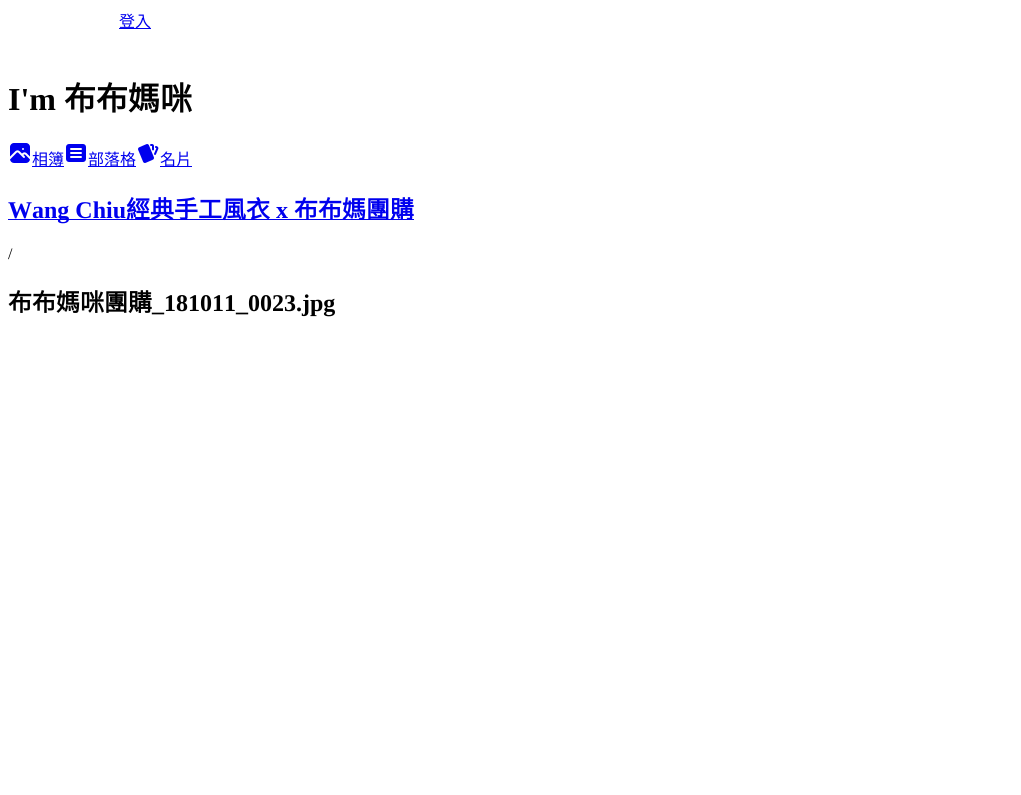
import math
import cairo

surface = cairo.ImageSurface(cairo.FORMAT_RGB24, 1021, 795)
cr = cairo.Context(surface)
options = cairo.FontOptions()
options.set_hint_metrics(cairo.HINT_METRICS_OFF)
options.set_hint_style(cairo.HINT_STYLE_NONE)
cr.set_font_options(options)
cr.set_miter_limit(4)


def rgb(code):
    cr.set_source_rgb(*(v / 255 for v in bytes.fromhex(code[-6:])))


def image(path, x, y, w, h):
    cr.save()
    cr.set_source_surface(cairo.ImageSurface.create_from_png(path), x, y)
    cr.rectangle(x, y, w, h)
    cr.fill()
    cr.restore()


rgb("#ffffff")
cr.paint()
rgb("#0000ee")
cr.rectangle(119, 28, 32, 1)
cr.fill()
image("img/1.png", 10, 143, 20, 20)
cr.rectangle(32, 166, 32, 1)
cr.fill()
image("img/2.png", 66, 144, 20, 18)
cr.rectangle(88, 166, 48, 1)
cr.fill()
image("img/3.png", 138, 144, 21, 19)
cr.rectangle(160, 166, 32, 1)
cr.fill()
cr.rectangle(8, 219, 406, 1)
cr.fill()
cr.select_font_face("Noto Sans CJK TC")
cr.set_font_size(16)
cr.move_to(119, 27)
cr.show_text("登入")
cr.select_font_face("Liberation Serif", cairo.FONT_SLANT_NORMAL, cairo.FONT_WEIGHT_BOLD)
cr.set_font_size(32)
rgb("#000000")
cr.move_to(8, 110)
cr.show_text("I'm")
cr.select_font_face("Noto Sans CJK TC", cairo.FONT_SLANT_NORMAL, cairo.FONT_WEIGHT_BOLD)
cr.move_to(64, 110)
cr.show_text("布布媽咪")
cr.select_font_face("Noto Sans CJK TC")
cr.set_font_size(16)
rgb("#0000ee")
for x, y, s in [
    (32, 165, "相簿"),
    (88, 165, "部落格"),
    (160, 165, "名片"),
]:
    cr.move_to(x, y)
    cr.show_text(s)
cr.select_font_face("Liberation Serif", cairo.FONT_SLANT_NORMAL, cairo.FONT_WEIGHT_BOLD)
cr.set_font_size(24)
cr.move_to(8, 218)
cr.show_text("Wang Chiu")
cr.select_font_face("Noto Sans CJK TC", cairo.FONT_SLANT_NORMAL, cairo.FONT_WEIGHT_BOLD)
cr.move_to(126, 218)
cr.show_text("經典手工風衣")
cr.select_font_face("Liberation Serif", cairo.FONT_SLANT_NORMAL, cairo.FONT_WEIGHT_BOLD)
cr.move_to(276, 218)
cr.show_text("x")
cr.select_font_face("Noto Sans CJK TC", cairo.FONT_SLANT_NORMAL, cairo.FONT_WEIGHT_BOLD)
cr.move_to(294, 218)
cr.show_text("布布媽團購")
cr.select_font_face("Liberation Serif")
cr.set_font_size(16)
rgb("#000000")
cr.move_to(8, 259)
cr.show_text("/")
cr.select_font_face("Noto Sans CJK TC", cairo.FONT_SLANT_NORMAL, cairo.FONT_WEIGHT_BOLD)
cr.set_font_size(24)
cr.move_to(8, 311)
cr.show_text("布布媽咪團購")
cr.select_font_face("Liberation Serif", cairo.FONT_SLANT_NORMAL, cairo.FONT_WEIGHT_BOLD)
cr.move_to(152, 311)
cr.show_text("_181011_0023.jpg")
surface.write_to_png("page.png")
